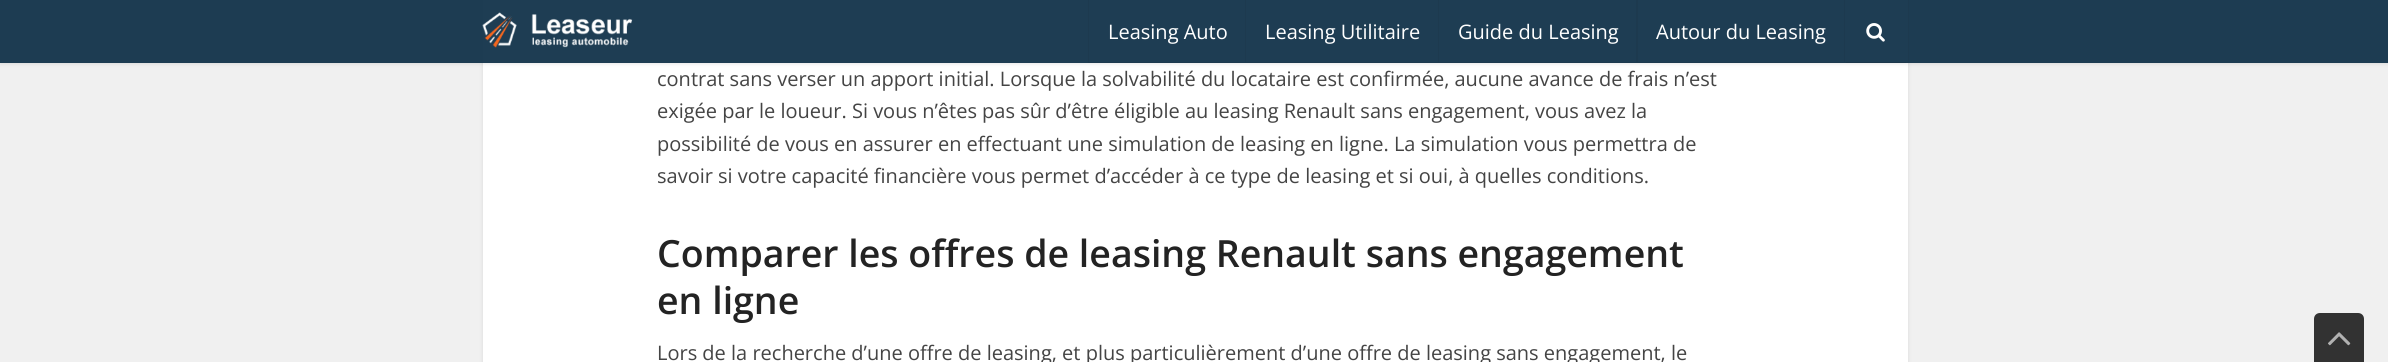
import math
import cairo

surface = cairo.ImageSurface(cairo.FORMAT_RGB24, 2388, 362)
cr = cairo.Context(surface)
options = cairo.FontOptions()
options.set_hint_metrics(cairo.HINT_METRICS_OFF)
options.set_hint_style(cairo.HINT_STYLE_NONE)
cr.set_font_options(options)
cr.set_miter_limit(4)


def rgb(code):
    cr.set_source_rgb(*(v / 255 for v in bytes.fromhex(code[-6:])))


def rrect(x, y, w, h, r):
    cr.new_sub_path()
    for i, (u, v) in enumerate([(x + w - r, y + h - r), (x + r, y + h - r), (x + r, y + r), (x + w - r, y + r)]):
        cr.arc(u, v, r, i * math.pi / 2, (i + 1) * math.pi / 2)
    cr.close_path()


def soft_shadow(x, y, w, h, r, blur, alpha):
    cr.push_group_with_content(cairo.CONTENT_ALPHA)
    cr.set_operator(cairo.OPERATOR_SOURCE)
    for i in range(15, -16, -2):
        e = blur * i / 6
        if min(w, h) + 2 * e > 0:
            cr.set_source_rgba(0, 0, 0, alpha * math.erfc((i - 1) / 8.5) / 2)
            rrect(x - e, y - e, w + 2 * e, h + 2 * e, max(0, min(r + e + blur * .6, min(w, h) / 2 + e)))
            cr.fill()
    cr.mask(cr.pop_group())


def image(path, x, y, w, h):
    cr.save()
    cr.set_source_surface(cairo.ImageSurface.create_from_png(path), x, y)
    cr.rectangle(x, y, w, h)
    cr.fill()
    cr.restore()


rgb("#f0f0f0")
cr.paint()
rgb("#000000")
soft_shadow(483, -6, 1425, 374, 0, 2, 0.1)
rgb("#ffffff")
cr.rectangle(483, 0, 1425, 362)
cr.fill()
cr.save()
cr.set_fill_rule(cairo.FILL_RULE_EVEN_ODD)
cr.new_path()
cr.move_to(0, 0)
cr.line_to(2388, 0)
cr.line_to(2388, 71)
cr.line_to(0, 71)
cr.close_path()
cr.move_to(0, 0)
cr.line_to(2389, 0)
cr.line_to(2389, 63)
cr.line_to(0, 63)
cr.close_path()
cr.clip()
rgb("#000000")
soft_shadow(0, 1, 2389, 63, 0, 2, 0.1)
cr.restore()
cr.set_source_rgba(0.078, 0.204, 0.294, 0.95)
cr.rectangle(0, 0, 2388, 63)
cr.fill()
image("img/1.png", 482, 12, 151, 36)
cr.set_source_rgba(0, 0, 0, 0.05)
cr.new_path()
cr.move_to(1088, 0)
cr.line_to(1088, 63)
cr.line_to(1245, 63)
cr.line_to(1245, 62)
cr.line_to(1089, 62)
cr.line_to(1089, 0)
cr.close_path()
cr.fill()
cr.new_path()
cr.move_to(1245, 0)
cr.line_to(1245, 63)
cr.line_to(1438, 63)
cr.line_to(1438, 62)
cr.line_to(1246, 62)
cr.line_to(1246, 0)
cr.close_path()
cr.fill()
cr.new_path()
cr.move_to(1438, 0)
cr.line_to(1438, 63)
cr.line_to(1636, 63)
cr.line_to(1636, 62)
cr.line_to(1439, 62)
cr.line_to(1439, 0)
cr.close_path()
cr.fill()
cr.new_path()
cr.move_to(1636, 0)
cr.line_to(1636, 63)
cr.line_to(1844, 63)
cr.line_to(1844, 62)
cr.line_to(1638, 62)
cr.line_to(1638, 0)
cr.close_path()
cr.fill()
rgb("#1d3a4f")
cr.new_path()
cr.move_to(1846, 62)
cr.line_to(1846, 63)
cr.line_to(1909, 63)
cr.line_to(1909, 0)
cr.line_to(1908, 0)
cr.line_to(1908, 62)
cr.close_path()
cr.fill()
cr.set_source_rgba(0, 0, 0, 0.05)
cr.new_path()
cr.move_to(1844, 0)
cr.line_to(1844, 63)
cr.line_to(1906, 63)
cr.line_to(1906, 62)
cr.line_to(1845, 62)
cr.line_to(1845, 0)
cr.close_path()
cr.fill()
image("img/2.png", 1866, 23, 19, 19)
rgb("#323232")
cr.new_path()
cr.move_to(2320, 313)
cr.line_to(2358, 313)
cr.curve_to(2361.5, 313, 2364, 315.5, 2364, 319)
cr.line_to(2364, 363)
cr.line_to(2314, 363)
cr.line_to(2314, 319)
cr.curve_to(2314, 315.5, 2316.5, 313, 2320, 313)
cr.close_path()
cr.fill()
image("img/3.png", 2328, 332, 23, 14)
cr.select_font_face("Open Sans")
cr.set_font_size(20)
rgb("#ffffff")
for x, y, s in [
    (1108, 39, "Leasing Auto"),
    (1265, 39, "Leasing Utilitaire"),
    (1458, 39, "Guide du Leasing"),
    (1656, 39, "Autour du Leasing"),
]:
    cr.move_to(x, y)
    cr.show_text(s)
rgb("#444444")
for x, y, s in [
    (657, 86, "contrat sans verser un apport initial. Lorsque la solvabilité du locataire est confirmée, aucune avance de frais n’est"),
    (657, 118, "exigée par le loueur. Si vous n’êtes pas sûr d’être éligible au leasing Renault sans engagement, vous avez la"),
    (657, 151, "possibilité de vous en assurer en effectuant une simulation de leasing en ligne. La simulation vous permettra de"),
    (657, 183, "savoir si votre capacité financière vous permet d’accéder à ce type de leasing et si oui, à quelles conditions."),
]:
    cr.move_to(x, y)
    cr.show_text(s)
cr.select_font_face("Open Sans SemiBold")
cr.set_font_size(37.5)
rgb("#232323")
cr.move_to(657, 267)
cr.show_text("Comparer les offres de leasing Renault sans engagement")
cr.move_to(657, 314)
cr.show_text("en ligne")
cr.select_font_face("Open Sans")
cr.set_font_size(20)
rgb("#444444")
cr.move_to(657, 360)
cr.show_text("Lors de la recherche d’une offre de leasing, et plus particulièrement d’une offre de leasing sans engagement, le")
surface.write_to_png("page.png")
